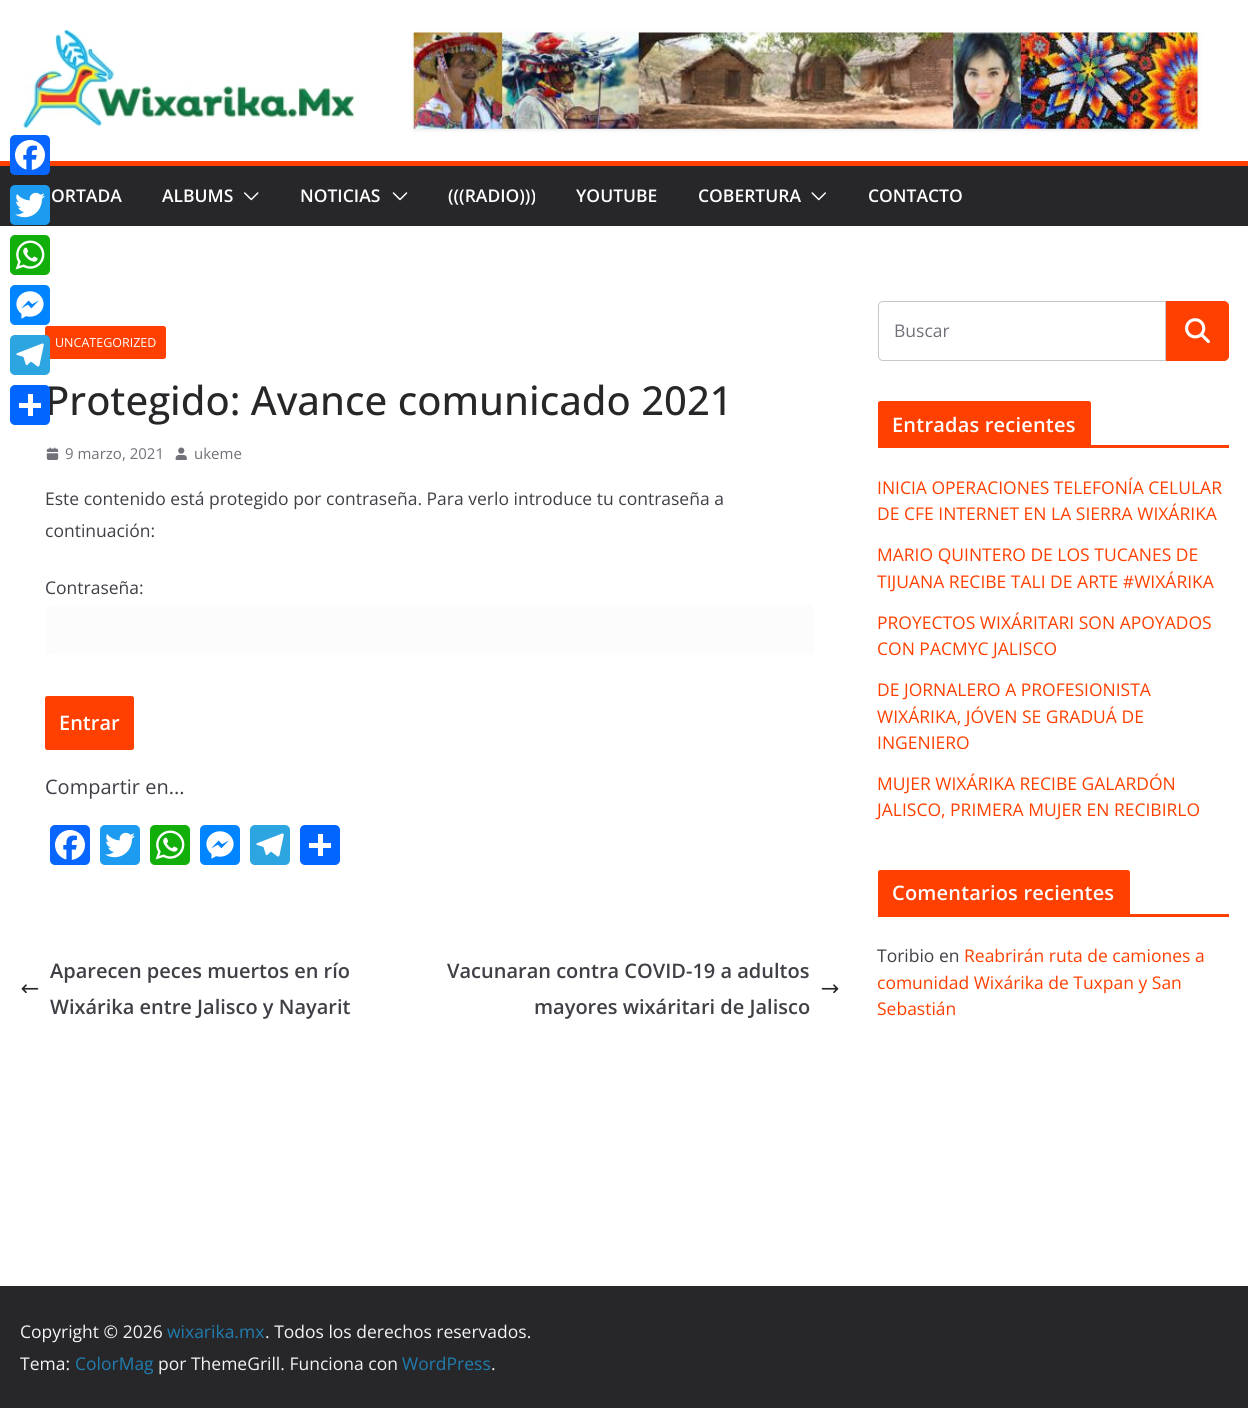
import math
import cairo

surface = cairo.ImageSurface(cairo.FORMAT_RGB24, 1248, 1408)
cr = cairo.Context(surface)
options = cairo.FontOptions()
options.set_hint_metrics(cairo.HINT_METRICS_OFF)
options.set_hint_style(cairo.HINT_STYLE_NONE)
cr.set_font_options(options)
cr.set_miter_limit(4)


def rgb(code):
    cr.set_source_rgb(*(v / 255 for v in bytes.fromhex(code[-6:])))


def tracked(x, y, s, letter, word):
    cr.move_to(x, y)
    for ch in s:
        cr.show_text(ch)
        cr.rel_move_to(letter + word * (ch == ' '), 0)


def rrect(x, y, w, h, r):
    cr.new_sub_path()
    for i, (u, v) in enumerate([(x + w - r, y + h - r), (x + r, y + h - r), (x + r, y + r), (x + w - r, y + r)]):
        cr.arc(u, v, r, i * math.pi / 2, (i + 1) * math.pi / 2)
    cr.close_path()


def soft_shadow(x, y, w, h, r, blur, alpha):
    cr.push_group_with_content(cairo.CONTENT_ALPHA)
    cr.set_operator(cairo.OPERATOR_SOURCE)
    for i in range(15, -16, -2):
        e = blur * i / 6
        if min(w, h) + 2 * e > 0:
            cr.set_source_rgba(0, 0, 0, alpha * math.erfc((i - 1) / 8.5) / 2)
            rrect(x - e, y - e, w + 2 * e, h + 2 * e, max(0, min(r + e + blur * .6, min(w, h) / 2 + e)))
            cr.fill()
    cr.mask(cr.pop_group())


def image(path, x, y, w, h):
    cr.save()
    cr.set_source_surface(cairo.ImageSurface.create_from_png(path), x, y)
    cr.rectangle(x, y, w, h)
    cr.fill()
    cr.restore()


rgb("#ffffff")
cr.paint()
rgb("#27272a")
cr.rectangle(0, 166, 1248, 60)
cr.fill()
rgb("#ff4000")
cr.rectangle(0, 161, 1248, 5)
cr.fill()
rgb("#0866ff")
rrect(10, 135, 40, 40, 5)
cr.fill()
image("img/1.png", 15, 140, 30, 30)
rgb("#1d9bf0")
rrect(10, 185, 40, 40, 5)
cr.fill()
image("img/2.png", 15, 192, 30, 26)
rgb("#12af0a")
rrect(10, 235, 40, 40, 5)
cr.fill()
image("img/3.png", 15, 240, 30, 30)
rgb("#0084ff")
rrect(10, 285, 40, 40, 5)
cr.fill()
image("img/4.png", 16, 291, 28, 28)
rgb("#ff4000")
rrect(45, 326, 121, 33, 2.5)
cr.fill()
rgb("#2ca5e0")
rrect(10, 335, 40, 40, 5)
cr.fill()
image("img/5.png", 16, 343, 28, 24)
image("img/6.png", 22, 30, 333, 99)
rgb("#000000")
soft_shadow(414, 34, 784, 96, 0, 2, 0.1)
image("img/7.png", 413, 32, 785, 97)
image("img/8.png", 244, 192, 15, 9)
image("img/9.png", 392, 192, 16, 9)
image("img/10.png", 811, 192, 15, 9)
image("img/11.png", 46, 447, 13, 13)
image("img/12.png", 175, 447, 12, 13)
rgb("#fcfcfc")
rrect(45.5, 604.5, 769, 51, 4.5)
cr.fill_preserve()
rgb("#ffffff")
cr.set_line_width(1)
cr.stroke()
rgb("#ff4000")
rrect(45.5, 696.5, 88, 53, 2)
cr.fill_preserve()
cr.stroke()
rgb("#0866ff")
rrect(50, 825, 40, 40, 5)
cr.fill()
image("img/1.png", 55, 830, 30, 30)
rgb("#1d9bf0")
rrect(100, 825, 40, 40, 5)
cr.fill()
image("img/2.png", 105, 832, 30, 26)
rgb("#12af0a")
rrect(150, 825, 40, 40, 5)
cr.fill()
image("img/3.png", 155, 830, 30, 30)
rgb("#0084ff")
rrect(200, 825, 40, 40, 5)
cr.fill()
image("img/4.png", 206, 831, 28, 28)
rgb("#2ca5e0")
rrect(250, 825, 40, 40, 5)
cr.fill()
image("img/5.png", 256, 833, 28, 24)
rgb("#0166ff")
rrect(300, 825, 40, 40, 5)
cr.fill()
rgb("#ffffff")
cr.rectangle(318, 834, 5, 22)
cr.fill()
cr.rectangle(309, 843, 22, 5)
cr.fill()
image("img/13.png", 21, 984, 18, 10)
image("img/14.png", 821, 984, 18, 10)
cr.new_path()
cr.move_to(883, 301.5)
cr.line_to(1165.5, 301.5)
cr.line_to(1165.5, 360.5)
cr.line_to(883, 360.5)
cr.curve_to(880.5, 360.5, 878.5, 358.5, 878.5, 356)
cr.line_to(878.5, 306)
cr.curve_to(878.5, 303.5, 880.5, 301.5, 883, 301.5)
cr.close_path()
rgb("#c7c7c7")
cr.stroke()
rgb("#ff4000")
cr.new_path()
cr.move_to(1166.5, 301.5)
cr.line_to(1224, 301.5)
cr.curve_to(1226.5, 301.5, 1228.5, 303.5, 1228.5, 306)
cr.line_to(1228.5, 356)
cr.curve_to(1228.5, 358.5, 1226.5, 360.5, 1224, 360.5)
cr.line_to(1166.5, 360.5)
cr.close_path()
cr.fill_preserve()
cr.stroke()
image("img/15.png", 1185, 318, 25, 26)
cr.rectangle(878, 445, 351, 3)
cr.fill()
cr.new_path()
cr.move_to(880.5, 401)
cr.line_to(1088.5, 401)
cr.curve_to(1090, 401, 1091, 402, 1091, 403.5)
cr.line_to(1091, 445)
cr.line_to(878, 445)
cr.line_to(878, 403.5)
cr.curve_to(878, 402, 879, 401, 880.5, 401)
cr.close_path()
cr.fill()
cr.rectangle(878, 914, 351, 3)
cr.fill()
cr.new_path()
cr.move_to(880.5, 870)
cr.line_to(1127.5, 870)
cr.curve_to(1129, 870, 1130, 871, 1130, 872.5)
cr.line_to(1130, 914)
cr.line_to(878, 914)
cr.line_to(878, 872.5)
cr.curve_to(878, 871, 879, 870, 880.5, 870)
cr.close_path()
cr.fill()
rgb("#27272a")
cr.rectangle(0, 1286, 1248, 122)
cr.fill()
cr.select_font_face("Open Sans SemiBold")
cr.set_font_size(17.5)
rgb("#ffffff")
for x, y, s in [
    (51, 202, "ORTADA"),
    (162, 202, "ALBUMS"),
    (300, 202, "NOTICIAS"),
    (448, 202, "(((RADIO)))"),
    (576, 202, "YOUTUBE"),
    (698, 202, "COBERTURA"),
    (868, 202, "CONTACTO"),
]:
    cr.move_to(x, y)
    cr.show_text(s)
cr.select_font_face("Open Sans")
cr.set_font_size(12.5)
cr.move_to(55, 347)
cr.show_text("UNCATEGORIZED")
cr.select_font_face("Open Sans Medium")
cr.set_font_size(40)
rgb("#27272a")
cr.move_to(45, 415)
cr.show_text("Protegido: Avance comunicado 2021")
rgb("#0166ff")
rrect(10, 385, 40, 40, 5)
cr.fill()
rgb("#ffffff")
cr.rectangle(28, 394, 5, 22)
cr.fill()
cr.rectangle(19, 403, 22, 5)
cr.fill()
cr.select_font_face("Open Sans")
cr.set_font_size(15)
rgb("#71717a")
cr.move_to(65, 459)
cr.show_text("9 marzo, 2021")
cr.move_to(194, 459)
cr.show_text("ukeme")
cr.set_font_size(17.5)
rgb("#3f3f46")
for x, y, s in [
    (45, 505, "Este contenido está protegido por contraseña. Para verlo introduce tu contraseña a"),
    (45, 537, "continuación:"),
    (45, 594, "Contraseña:"),
]:
    cr.move_to(x, y)
    cr.show_text(s)
cr.select_font_face("Open Sans SemiBold")
cr.set_font_size(20)
rgb("#ffffff")
cr.move_to(59, 730)
cr.show_text("Entrar")
cr.select_font_face("Open Sans")
rgb("#3f3f46")
cr.move_to(45, 794)
cr.show_text("Compartir en...")
cr.select_font_face("Open Sans SemiBold")
for x, y, s in [
    (50, 978, "Aparecen peces muertos en río"),
    (50, 1014, "Wixárika entre Jalisco y Nayarit"),
    (447, 978, "Vacunaran contra COVID-19 a adultos"),
    (534, 1014, "mayores wixáritari de Jalisco"),
]:
    cr.move_to(x, y)
    cr.show_text(s)
cr.select_font_face("Open Sans")
cr.set_font_size(17.5)
rgb("#71717a")
cr.move_to(894, 337)
cr.show_text("Buscar")
cr.select_font_face("Open Sans SemiBold")
cr.set_font_size(20)
rgb("#ffffff")
tracked(892, 432, "Entradas recientes", 0.2, 0)
cr.select_font_face("Open Sans")
cr.set_font_size(17.5)
rgb("#ff4000")
for x, y, s in [
    (877, 494, "INICIA OPERACIONES TELEFONÍA CELULAR"),
    (877, 520, "DE CFE INTERNET EN LA SIERRA WIXÁRIKA"),
    (877, 561, "MARIO QUINTERO DE LOS TUCANES DE"),
    (877, 588, "TIJUANA RECIBE TALI DE ARTE #WIXÁRIKA"),
    (877, 629, "PROYECTOS WIXÁRITARI SON APOYADOS"),
    (877, 655, "CON PACMYC JALISCO"),
    (877, 696, "DE JORNALERO A PROFESIONISTA"),
    (877, 723, "WIXÁRIKA, JÓVEN SE GRADUÁ DE"),
    (877, 749, "INGENIERO"),
    (877, 790, "MUJER WIXÁRIKA RECIBE GALARDÓN"),
    (877, 816, "JALISCO, PRIMERA MUJER EN RECIBIRLO"),
]:
    cr.move_to(x, y)
    cr.show_text(s)
cr.select_font_face("Open Sans SemiBold")
cr.set_font_size(20)
rgb("#ffffff")
tracked(892, 900, "Comentarios recientes", 0.2, 0)
cr.select_font_face("Open Sans")
cr.set_font_size(17.5)
rgb("#3f3f46")
cr.move_to(877, 962)
cr.show_text("Toribio en")
rgb("#ff4000")
for x, y, s in [
    (964, 962, "Reabrirán ruta de camiones a"),
    (877, 989, "comunidad Wixárika de Tuxpan y San"),
    (877, 1015, "Sebastián"),
]:
    cr.move_to(x, y)
    cr.show_text(s)
rgb("#f4f4f5")
cr.move_to(20, 1338)
cr.show_text("Copyright © 2026")
rgb("#207daf")
cr.move_to(167, 1338)
cr.show_text("wixarika.mx")
rgb("#f4f4f5")
cr.move_to(265, 1338)
cr.show_text(". Todos los derechos reservados.")
cr.move_to(20, 1370)
cr.show_text("Tema:")
rgb("#207daf")
cr.move_to(75, 1370)
cr.show_text("ColorMag")
rgb("#f4f4f5")
cr.move_to(158, 1370)
cr.show_text("por ThemeGrill. Funciona con")
rgb("#207daf")
cr.move_to(402, 1370)
cr.show_text("WordPress")
rgb("#f4f4f5")
cr.move_to(491, 1370)
cr.show_text(".")
surface.write_to_png("page.png")
